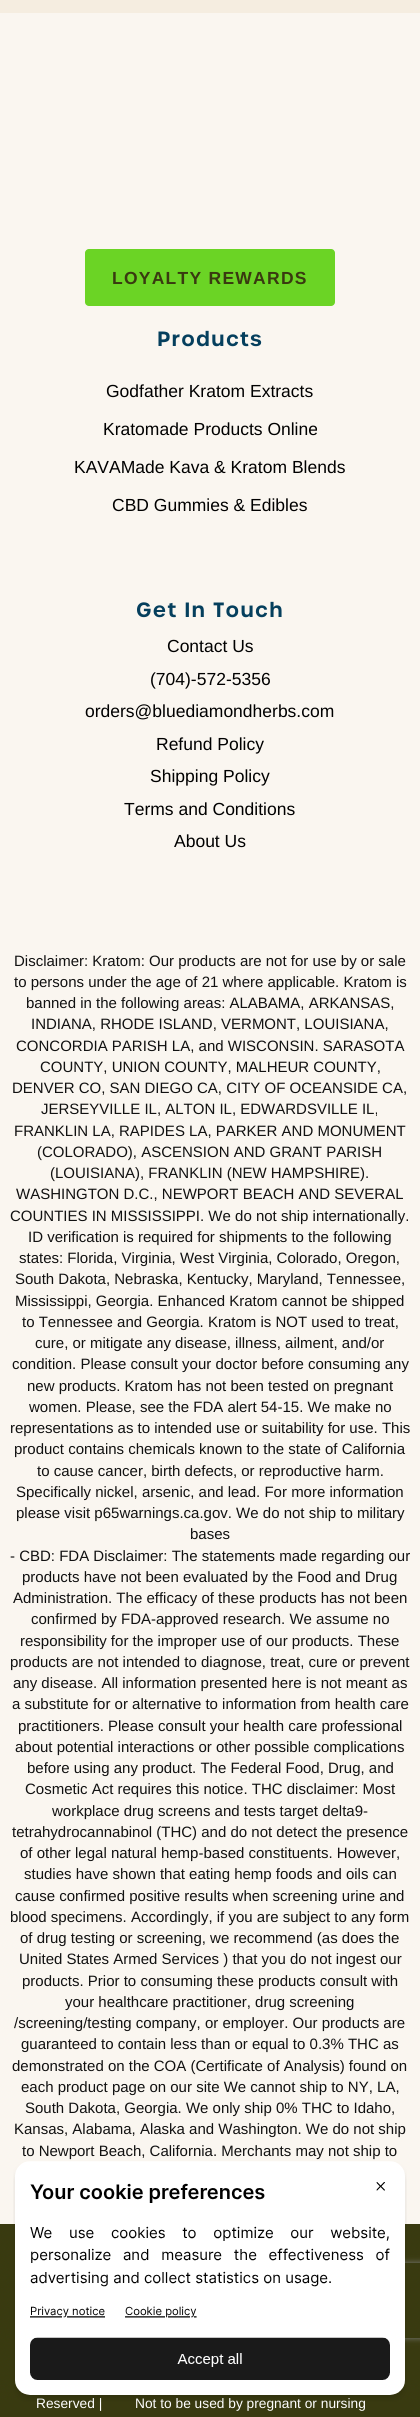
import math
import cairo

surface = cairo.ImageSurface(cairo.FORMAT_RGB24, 420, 2417)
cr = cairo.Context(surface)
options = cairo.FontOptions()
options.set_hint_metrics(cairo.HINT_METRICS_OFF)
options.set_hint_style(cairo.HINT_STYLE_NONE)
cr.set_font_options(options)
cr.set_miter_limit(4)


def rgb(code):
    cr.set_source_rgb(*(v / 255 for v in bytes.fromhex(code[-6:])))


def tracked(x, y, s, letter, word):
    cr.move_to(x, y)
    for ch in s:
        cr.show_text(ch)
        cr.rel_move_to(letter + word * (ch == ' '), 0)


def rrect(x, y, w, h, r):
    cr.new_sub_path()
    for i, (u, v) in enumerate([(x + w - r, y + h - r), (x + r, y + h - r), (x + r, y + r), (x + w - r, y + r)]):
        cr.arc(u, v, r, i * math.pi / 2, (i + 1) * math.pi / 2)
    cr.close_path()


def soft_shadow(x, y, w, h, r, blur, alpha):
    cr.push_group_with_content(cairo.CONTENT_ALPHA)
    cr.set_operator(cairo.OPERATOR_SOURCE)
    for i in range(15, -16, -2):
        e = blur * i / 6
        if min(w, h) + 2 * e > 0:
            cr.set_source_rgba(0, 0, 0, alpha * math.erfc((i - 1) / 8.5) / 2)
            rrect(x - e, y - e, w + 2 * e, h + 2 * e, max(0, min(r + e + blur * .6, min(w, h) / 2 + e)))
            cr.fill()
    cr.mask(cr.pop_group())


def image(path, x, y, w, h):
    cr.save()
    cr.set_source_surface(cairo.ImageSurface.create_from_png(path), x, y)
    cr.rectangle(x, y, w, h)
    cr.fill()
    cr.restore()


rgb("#f5ede0")
cr.paint()
rgb("#faf6f0")
cr.rectangle(0, 13, 420, 2211)
cr.fill()
rgb("#6bd425")
rrect(85, 249, 250, 57, 4)
cr.fill()
rgb("#393a10")
cr.rectangle(0, 2224, 420, 193)
cr.fill()
cr.save()
cr.set_fill_rule(cairo.FILL_RULE_EVEN_ODD)
cr.new_path()
cr.move_to(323, 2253)
cr.line_to(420, 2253)
cr.line_to(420, 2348)
cr.line_to(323, 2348)
cr.close_path()
cr.move_to(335.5, 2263)
cr.line_to(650.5, 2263)
cr.curve_to(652, 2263, 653, 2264, 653, 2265.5)
cr.line_to(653, 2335.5)
cr.curve_to(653, 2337, 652, 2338, 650.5, 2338)
cr.line_to(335.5, 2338)
cr.curve_to(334, 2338, 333, 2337, 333, 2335.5)
cr.line_to(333, 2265.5)
cr.curve_to(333, 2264, 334, 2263, 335.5, 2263)
cr.close_path()
cr.clip()
rgb("#808080")
soft_shadow(333, 2263, 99, 75, 2.5, 3, 1)
cr.restore()
cr.select_font_face("Liberation Sans", cairo.FONT_SLANT_NORMAL, cairo.FONT_WEIGHT_BOLD)
cr.set_font_size(17.5)
tracked(112, 284, "LOYALTY REWARDS", 1.25, 0)
cr.select_font_face("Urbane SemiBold")
cr.set_font_size(20)
rgb("#053f5d")
tracked(157, 346, "Products", 1.25, 0)
cr.select_font_face("Liberation Sans")
cr.set_font_size(17.5)
rgb("#000000")
for x, y, s in [
    (106, 397, "Godfather Kratom Extracts"),
    (103, 435, "Kratomade Products Online"),
    (74, 473, "KAVAMade Kava & Kratom Blends"),
    (112, 511, "CBD Gummies & Edibles"),
]:
    cr.move_to(x, y)
    cr.show_text(s)
cr.select_font_face("Urbane SemiBold")
cr.set_font_size(20)
rgb("#053f5d")
tracked(136, 617, "Get In Touch", 1.25, 0)
cr.select_font_face("Liberation Sans")
cr.set_font_size(17.5)
rgb("#000000")
for x, y, s in [
    (167, 652, "Contact Us"),
    (150, 685, "(704)-572-5356"),
    (85, 717, "orders@bluediamondherbs.com"),
    (156, 750, "Refund Policy"),
    (150, 782, "Shipping Policy"),
    (124, 815, "Terms and Conditions"),
    (174, 847, "About Us"),
]:
    cr.move_to(x, y)
    cr.show_text(s)
cr.set_font_size(15)
rgb("#111111")
for x, y, s in [
    (14, 966, "Disclaimer: Kratom: Our products are not for use by or sale"),
    (14, 987, "to persons under the age of 21 where applicable. Kratom is"),
    (26, 1008, "banned in the following areas: ALABAMA, ARKANSAS,"),
    (31, 1029, "INDIANA, RHODE ISLAND, VERMONT, LOUISIANA,"),
    (16, 1051, "CONCORDIA PARISH LA, and WISCONSIN. SARASOTA"),
    (40, 1072, "COUNTY, UNION COUNTY, MALHEUR COUNTY,"),
    (12, 1093, "DENVER CO, SAN DIEGO CA, CITY OF OCEANSIDE CA,"),
    (41, 1114, "JERSEYVILLE IL, ALTON IL, EDWARDSVILLE IL,"),
    (14, 1136, "FRANKLIN LA, RAPIDES LA, PARKER AND MONUMENT"),
    (37, 1157, "(COLORADO), ASCENSION AND GRANT PARISH"),
    (50, 1178, "(LOUISIANA), FRANKLIN (NEW HAMPSHIRE)."),
    (16, 1199, "WASHINGTON D.C., NEWPORT BEACH AND SEVERAL"),
    (10, 1221, "COUNTIES IN MISSISSIPPI. We do not ship internationally."),
    (28, 1242, "ID verification is required for shipments to the following"),
    (19, 1263, "states: Florida, Virginia, West Virginia, Colorado, Oregon,"),
    (15, 1284, "South Dakota, Nebraska, Kentucky, Maryland, Tennessee,"),
    (15, 1306, "Mississippi, Georgia. Enhanced Kratom cannot be shipped"),
    (22, 1327, "to Tennessee and Georgia. Kratom is NOT used to treat,"),
    (35, 1348, "cure, or mitigate any disease, illness, ailment, and/or"),
    (12, 1369, "condition. Please consult your doctor before consuming any"),
    (27, 1391, "new products. Kratom has not been tested on pregnant"),
    (29, 1412, "women. Please, see the FDA alert 54-15. We make no"),
    (10, 1433, "representations as to intended use or suitability for use. This"),
    (14, 1454, "product contains chemicals known to the state of California"),
    (37, 1476, "to cause cancer, birth defects, or reproductive harm."),
    (16, 1497, "Specifically nickel, arsenic, and lead. For more information"),
    (16, 1518, "please visit p65warnings.ca.gov. We do not ship to military"),
    (190, 1539, "bases"),
    (10, 1561, "- CBD: FDA Disclaimer: The statements made regarding our"),
    (22, 1582, "products have not been evaluated by the Food and Drug"),
    (13, 1603, "Administration. The efficacy of these products has not been"),
    (31, 1624, "confirmed by FDA-approved research. We assume no"),
    (20, 1646, "responsibility for the improper use of our products. These"),
    (10, 1667, "products are not intended to diagnose, treat, cure or prevent"),
    (13, 1688, "any disease. All information presented here is not meant as"),
    (12, 1709, "a substitute for or alternative to information from health care"),
    (18, 1731, "practitioners. Please consult your health care professional"),
    (15, 1752, "about potential interactions or other possible complications"),
    (27, 1773, "before using any product. The Federal Food, Drug, and"),
    (25, 1794, "Cosmetic Act requires this notice. THC disclaimer: Most"),
    (52, 1816, "workplace drug screens and tests target delta9-"),
    (12, 1837, "tetrahydrocannabinol (THC) and do not detect the presence"),
    (20, 1858, "of other legal natural hemp-based constituents. However,"),
    (24, 1879, "studies have shown that eating hemp foods and oils can"),
    (15, 1901, "cause confirmed positive results when screening urine and"),
    (10, 1922, "blood specimens. Accordingly, if you are subject to any form"),
    (20, 1943, "of drug testing or screening, we recommend (as does the"),
    (19, 1964, "United States Armed Services ) that you do not ingest our"),
    (22, 1986, "products. Prior to consuming these products consult with"),
    (65, 2007, "your healthcare practitioner, drug screening"),
    (14, 2028, "/screening/testing company, or employer. Our products are"),
    (21, 2049, "guaranteed to contain less than or equal to 0.3% THC as"),
    (12, 2071, "demonstrated on the COA (Certificate of Analysis) found on"),
    (21, 2092, "each product page on our site We cannot ship to NY, LA,"),
    (25, 2113, "South Dakota, Georgia. We only ship 0% THC to Idaho,"),
    (14, 2134, "Kansas, Alabama, Alaska and Washington. We do not ship"),
    (22, 2156, "to Newport Beach, California. Merchants may not ship to"),
]:
    cr.move_to(x, y)
    cr.show_text(s)
cr.set_font_size(13.75)
rgb("#ffffff")
cr.move_to(36, 2408)
cr.show_text("Reserved |")
cr.move_to(135, 2408)
cr.show_text("Not to be used by pregnant or nursing")
image("img/1.png", 13, 2161, 394, 241)
surface.write_to_png("page.png")
